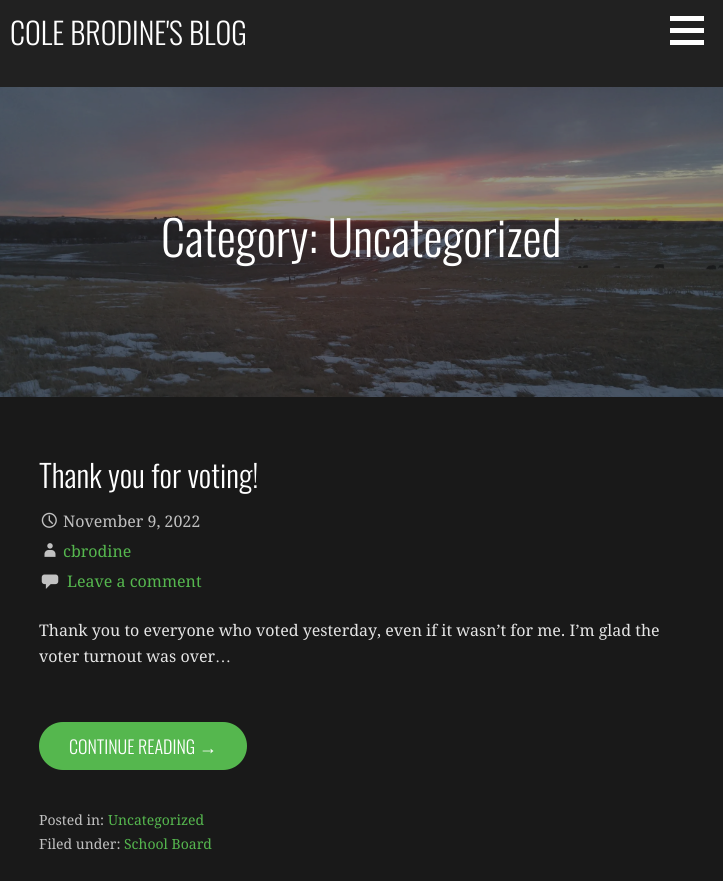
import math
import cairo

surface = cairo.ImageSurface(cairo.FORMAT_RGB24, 723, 881)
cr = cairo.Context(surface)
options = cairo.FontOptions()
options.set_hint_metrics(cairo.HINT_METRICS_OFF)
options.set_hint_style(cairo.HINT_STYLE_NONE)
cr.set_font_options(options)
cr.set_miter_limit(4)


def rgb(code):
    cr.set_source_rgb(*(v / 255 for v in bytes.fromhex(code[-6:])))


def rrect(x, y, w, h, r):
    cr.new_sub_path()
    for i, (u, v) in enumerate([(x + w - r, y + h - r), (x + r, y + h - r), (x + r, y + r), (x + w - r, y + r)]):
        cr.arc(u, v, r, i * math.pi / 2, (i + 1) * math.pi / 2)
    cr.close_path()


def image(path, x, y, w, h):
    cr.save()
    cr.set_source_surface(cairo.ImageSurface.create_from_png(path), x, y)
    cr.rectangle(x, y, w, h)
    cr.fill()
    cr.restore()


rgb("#191919")
cr.paint()
image("img/1.png", 0, 87, 723, 310)
for x, y, w, h, color in [
    (0, 0, 723, 87, "#212121"),
    (670, 16, 34, 5, "#ffffff"),
    (670, 28, 34, 5, "#ffffff"),
    (670, 40, 34, 5, "#ffffff"),
]:
    rgb(color)
    cr.rectangle(x, y, w, h)
    cr.fill()
image("img/2.png", 41, 512, 16, 16)
image("img/3.png", 44, 543, 12, 14)
image("img/4.png", 41, 574, 18, 15)
rgb("#55b74e")
rrect(39, 722, 208, 48, 24)
cr.fill()
cr.select_font_face("Oswald Light")
cr.set_font_size(30)
rgb("#ffffff")
cr.move_to(10, 45)
cr.show_text("COLE BRODINE'S BLOG")
cr.set_font_size(48)
cr.move_to(161, 257)
cr.show_text("Category: Uncategorized")
cr.set_font_size(31)
cr.move_to(39, 488)
cr.show_text("Thank you for voting!")
cr.select_font_face("Droid Serif")
cr.set_font_size(16)
rgb("#c1c1c1")
cr.move_to(63, 527)
cr.show_text("November 9, 2022")
rgb("#55b74e")
cr.move_to(63, 557)
cr.show_text("cbrodine")
cr.move_to(67, 587)
cr.show_text("Leave a comment")
rgb("#e5e5e5")
cr.move_to(39, 636)
cr.show_text("Thank you to everyone who voted yesterday, even if it wasn’t for me. I’m glad the")
cr.move_to(39, 662)
cr.show_text("voter turnout was over")
cr.select_font_face("Liberation Serif")
cr.move_to(215, 662)
cr.show_text("…")
cr.select_font_face("Oswald Light")
cr.set_font_size(18)
rgb("#ffffff")
cr.move_to(69, 754)
cr.show_text("CONTINUE READING")
cr.select_font_face("Liberation Sans")
cr.move_to(199, 754)
cr.show_text("→")
cr.select_font_face("Droid Serif")
cr.set_font_size(14)
rgb("#c1c1c1")
cr.move_to(39, 825)
cr.show_text("Posted in:")
rgb("#55b74e")
cr.move_to(108, 825)
cr.show_text("Uncategorized")
rgb("#c1c1c1")
cr.move_to(39, 849)
cr.show_text("Filed under:")
rgb("#55b74e")
cr.move_to(124, 849)
cr.show_text("School Board")
surface.write_to_png("page.png")
